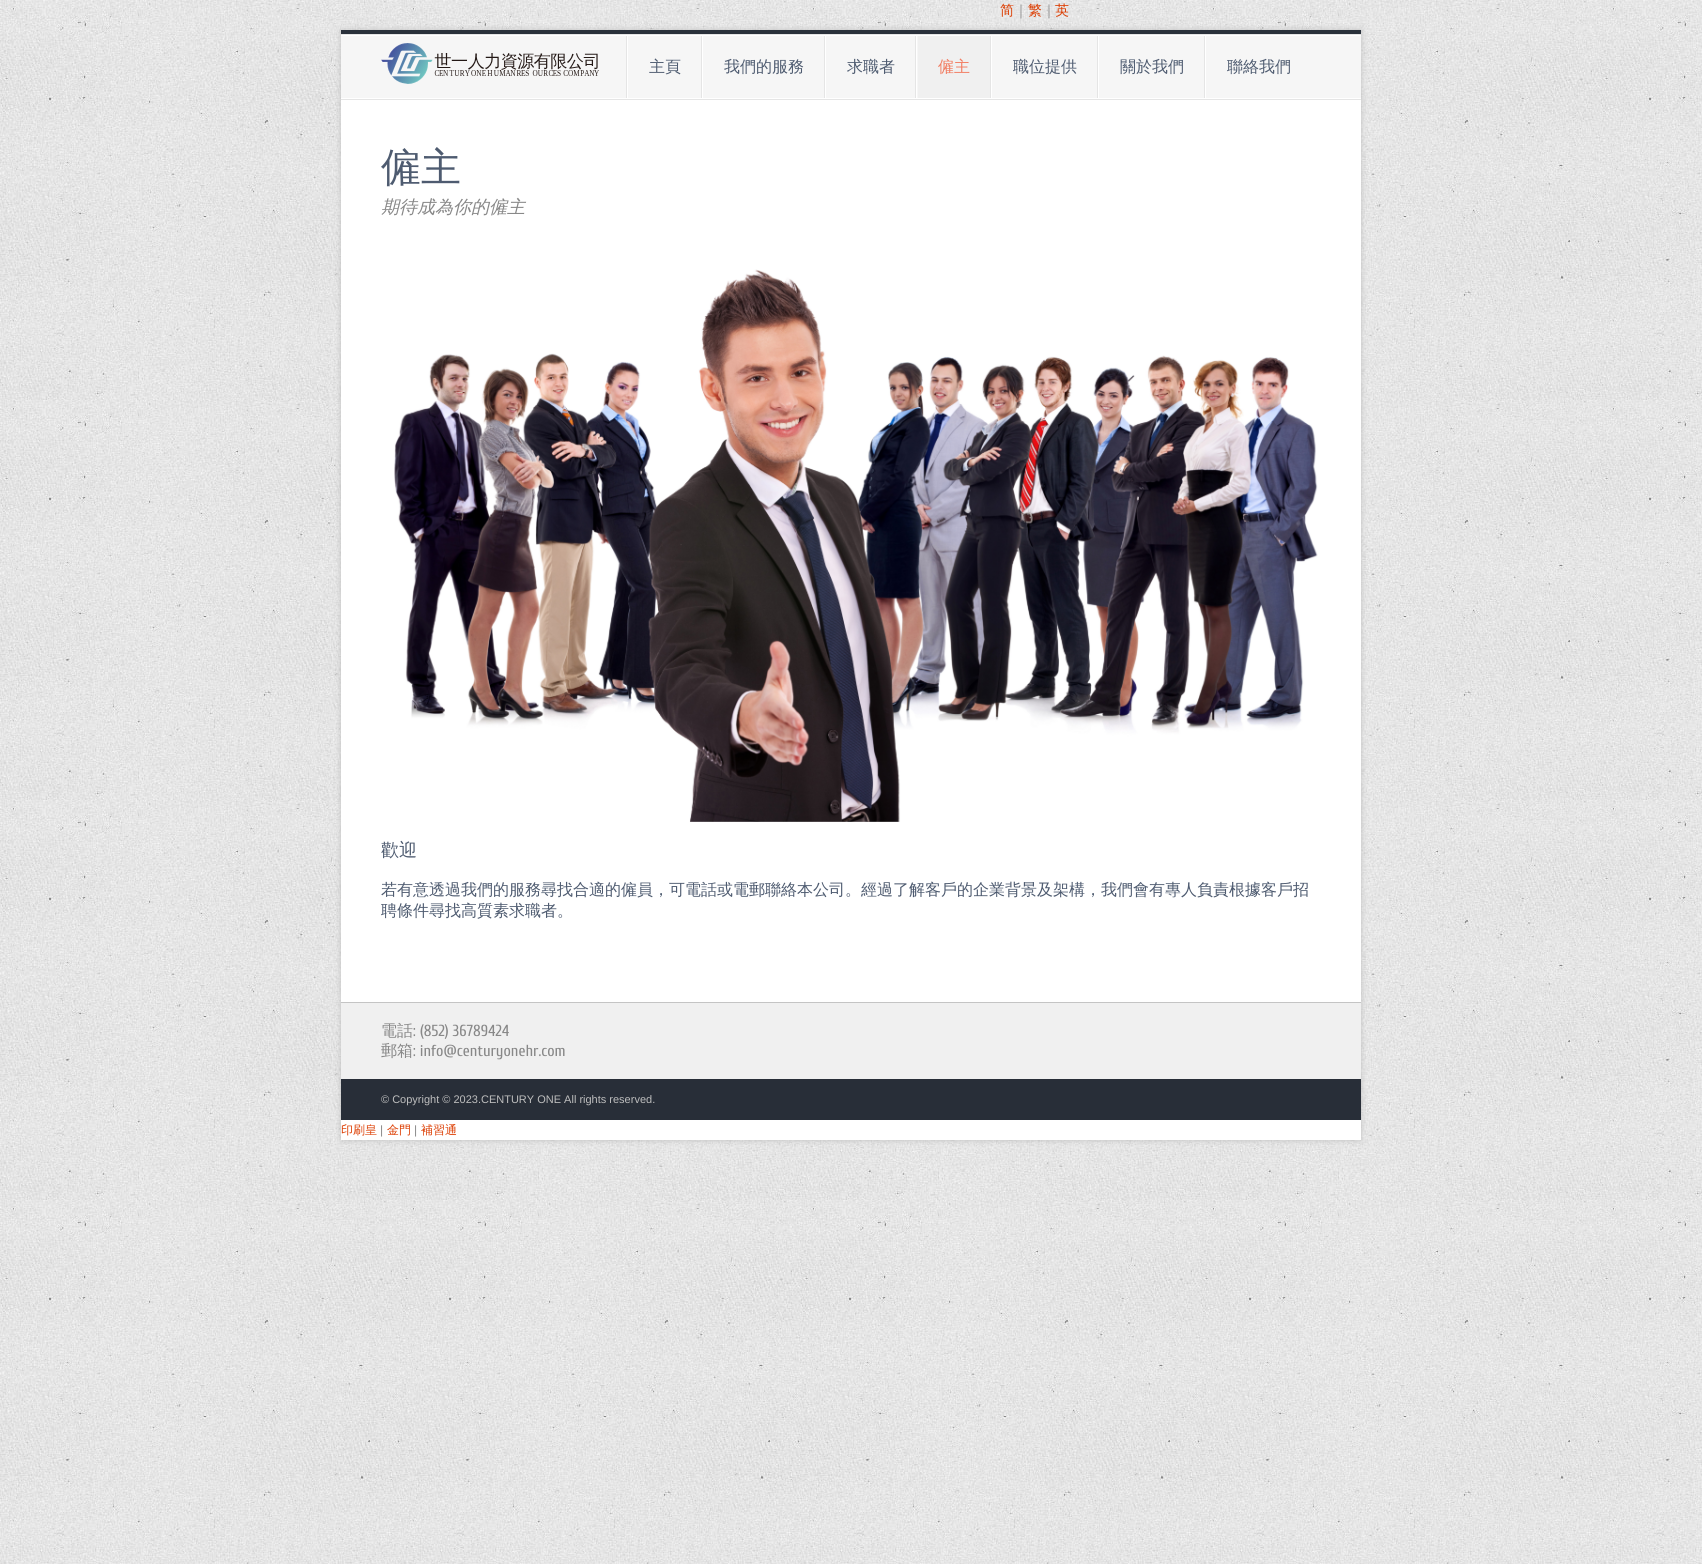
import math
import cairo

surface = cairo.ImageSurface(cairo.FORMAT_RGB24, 1702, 1564)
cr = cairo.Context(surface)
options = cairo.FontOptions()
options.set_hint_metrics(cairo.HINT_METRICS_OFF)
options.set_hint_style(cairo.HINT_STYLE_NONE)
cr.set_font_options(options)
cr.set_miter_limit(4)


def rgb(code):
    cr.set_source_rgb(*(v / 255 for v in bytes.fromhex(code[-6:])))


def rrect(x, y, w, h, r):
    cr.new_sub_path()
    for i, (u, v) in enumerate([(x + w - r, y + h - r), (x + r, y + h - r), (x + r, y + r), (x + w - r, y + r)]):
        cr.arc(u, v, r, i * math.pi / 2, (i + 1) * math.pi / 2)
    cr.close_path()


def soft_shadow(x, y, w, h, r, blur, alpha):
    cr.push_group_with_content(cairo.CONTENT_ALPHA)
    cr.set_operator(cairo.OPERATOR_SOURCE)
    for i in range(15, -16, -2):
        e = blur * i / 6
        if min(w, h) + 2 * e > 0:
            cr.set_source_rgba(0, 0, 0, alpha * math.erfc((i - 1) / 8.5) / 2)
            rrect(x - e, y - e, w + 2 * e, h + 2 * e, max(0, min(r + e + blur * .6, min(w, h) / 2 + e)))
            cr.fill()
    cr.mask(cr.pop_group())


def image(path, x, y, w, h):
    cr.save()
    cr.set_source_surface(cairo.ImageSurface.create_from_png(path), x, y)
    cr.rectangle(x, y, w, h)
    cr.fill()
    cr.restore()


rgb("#ffffff")
cr.paint()
image("img/1.png", 0, 0, 1702, 1564)
rgb("#bdbdbd")
soft_shadow(341, 30, 1020, 1110, 0, 3, 1)
for x, y, w, h, color in [
    (341, 100, 1020, 1040, "#ffffff"),
    (341, 30, 1020, 4, "#2a313b"),
    (341, 34, 1020, 1, "#e5e5e5"),
    (341, 36, 1020, 62, "#f6f6f6"),
    (341, 35, 1020, 1, "#ffffff"),
    (341, 99, 1020, 1, "#e5e5e5"),
]:
    rgb(color)
    cr.rectangle(x, y, w, h)
    cr.fill()
image("img/2.png", 381, 43, 218, 41)
for x, y, w, h, color in [
    (626, 36, 1, 62, "#e5e5e5"),
    (627, 36, 1, 62, "#ffffff"),
    (701, 36, 1, 62, "#e5e5e5"),
    (702, 36, 1, 62, "#ffffff"),
    (824, 36, 1, 62, "#e5e5e5"),
    (825, 36, 1, 62, "#ffffff"),
    (915, 36, 1, 62, "#e5e5e5"),
    (916, 36, 1, 62, "#ffffff"),
    (918, 36, 72, 62, "#f0f0f0"),
    (990, 36, 1, 62, "#e5e5e5"),
    (991, 36, 1, 62, "#ffffff"),
    (1097, 36, 1, 62, "#e5e5e5"),
    (1098, 36, 1, 62, "#ffffff"),
    (1204, 36, 1, 62, "#e5e5e5"),
    (1205, 36, 1, 62, "#ffffff"),
    (341, 98, 1020, 1, "#ffffff"),
]:
    rgb(color)
    cr.rectangle(x, y, w, h)
    cr.fill()
image("img/3.png", 394, 269, 924, 553)
for x, y, w, h, color in [
    (341, 1003, 1020, 76, "#f0f0f0"),
    (341, 1002, 1020, 1, "#c4c4c4"),
    (341, 1079, 1020, 41, "#282e38"),
]:
    rgb(color)
    cr.rectangle(x, y, w, h)
    cr.fill()
cr.select_font_face("WenQuanYi Zen Hei Medium")
cr.set_font_size(14)
rgb("#dc3c00")
cr.move_to(1000, 15)
cr.show_text("简")
rgb("#888888")
cr.move_to(1014, 15)
cr.show_text("｜")
rgb("#dc3c00")
cr.move_to(1028, 15)
cr.show_text("繁")
rgb("#888888")
cr.move_to(1042, 15)
cr.show_text("｜")
rgb("#dc3c00")
cr.move_to(1055, 15)
cr.show_text("英")
cr.set_font_size(16)
rgb("#4e5b70")
for x, y, s in [
    (649, 72, "主頁"),
    (724, 72, "我們的服務"),
    (847, 72, "求職者"),
]:
    cr.move_to(x, y)
    cr.show_text(s)
rgb("#f27c61")
cr.move_to(938, 72)
cr.show_text("僱主")
rgb("#4e5b70")
for x, y, s in [
    (1013, 72, "職位提供"),
    (1120, 72, "關於我們"),
    (1227, 72, "聯絡我們"),
]:
    cr.move_to(x, y)
    cr.show_text(s)
cr.set_font_size(40)
cr.move_to(381, 181)
cr.show_text("僱主")
cr.select_font_face("WenQuanYi Zen Hei Medium", cairo.FONT_SLANT_ITALIC)
cr.set_font_size(18)
rgb("#888888")
cr.move_to(381, 213)
cr.show_text("期待成為你的僱主")
cr.select_font_face("WenQuanYi Zen Hei Medium")
rgb("#4e5b70")
cr.move_to(381, 856)
cr.show_text("歡迎")
cr.set_font_size(16)
cr.move_to(381, 895)
cr.show_text("若有意透過我們的服務尋找合適的僱員，可電話或電郵聯絡本公司。經過了解客戶的企業背景及架構，我們會有專人負責根據客戶招")
cr.move_to(381, 916)
cr.show_text("聘條件尋找高質素求職者。")
rgb("#888888")
cr.move_to(381, 1036)
cr.show_text("電話")
cr.select_font_face("Cuprum")
cr.move_to(413, 1036)
cr.show_text(": (852) 36789424")
cr.select_font_face("WenQuanYi Zen Hei Medium")
cr.move_to(381, 1056)
cr.show_text("郵箱")
cr.select_font_face("Cuprum")
cr.move_to(413, 1056)
cr.show_text(": info@centuryonehr.com")
cr.select_font_face("Liberation Sans")
cr.set_font_size(11)
rgb("#bebebe")
cr.move_to(381, 1103)
cr.show_text("© Copyright © 2023.CENTURY ONE All rights reserved.")
cr.select_font_face("WenQuanYi Zen Hei Medium")
cr.set_font_size(12)
rgb("#dc3c00")
cr.move_to(341, 1134)
cr.show_text("印刷皇")
cr.select_font_face("Liberation Sans")
rgb("#888888")
cr.move_to(380, 1134)
cr.show_text("|")
cr.select_font_face("WenQuanYi Zen Hei Medium")
rgb("#dc3c00")
cr.move_to(387, 1134)
cr.show_text("金門")
cr.select_font_face("Liberation Sans")
rgb("#888888")
cr.move_to(414, 1134)
cr.show_text("|")
cr.select_font_face("WenQuanYi Zen Hei Medium")
rgb("#dc3c00")
cr.move_to(421, 1134)
cr.show_text("補習通")
surface.write_to_png("page.png")
